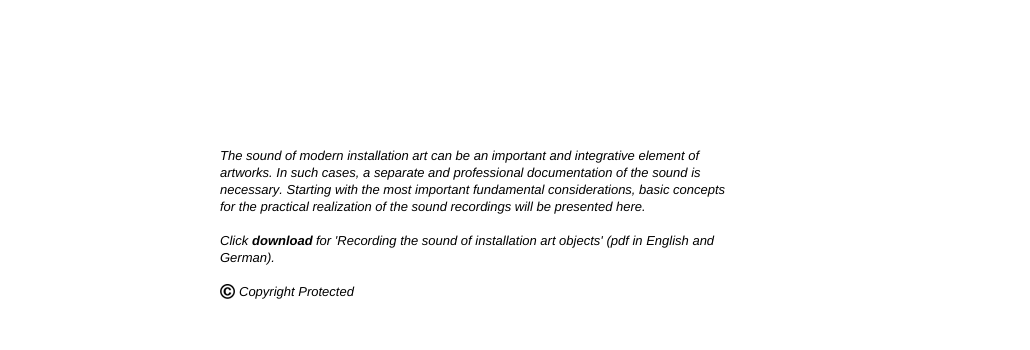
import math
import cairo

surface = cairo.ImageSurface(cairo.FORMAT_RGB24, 1030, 350)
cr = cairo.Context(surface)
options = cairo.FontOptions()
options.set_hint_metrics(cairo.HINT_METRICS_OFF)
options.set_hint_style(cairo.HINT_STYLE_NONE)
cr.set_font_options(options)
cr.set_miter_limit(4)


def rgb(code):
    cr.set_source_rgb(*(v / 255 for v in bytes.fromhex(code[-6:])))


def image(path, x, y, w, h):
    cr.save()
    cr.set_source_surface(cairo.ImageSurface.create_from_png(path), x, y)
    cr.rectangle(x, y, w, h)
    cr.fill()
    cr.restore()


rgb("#ffffff")
cr.paint()
image("img/1.png", 220, 284, 15, 15)
cr.select_font_face("Liberation Sans", cairo.FONT_SLANT_ITALIC)
cr.set_font_size(13)
rgb("#000000")
for x, y, s in [
    (220, 160, "The sound of modern installation art can be an important and integrative element of"),
    (220, 177, "artworks. In such cases, a separate and professional documentation of the sound is"),
    (220, 194, "necessary. Starting with the most important fundamental considerations, basic concepts"),
    (220, 211, "for the practical realization of the sound recordings will be presented here."),
    (220, 245, "Click"),
]:
    cr.move_to(x, y)
    cr.show_text(s)
cr.select_font_face("Liberation Sans", cairo.FONT_SLANT_ITALIC, cairo.FONT_WEIGHT_BOLD)
cr.move_to(252, 245)
cr.show_text("download")
cr.select_font_face("Liberation Sans", cairo.FONT_SLANT_ITALIC)
for x, y, s in [
    (316, 245, "for 'Recording the sound of installation art objects' (pdf in English and"),
    (220, 262, "German)."),
    (239, 296, "Copyright Protected"),
]:
    cr.move_to(x, y)
    cr.show_text(s)
surface.write_to_png("page.png")
